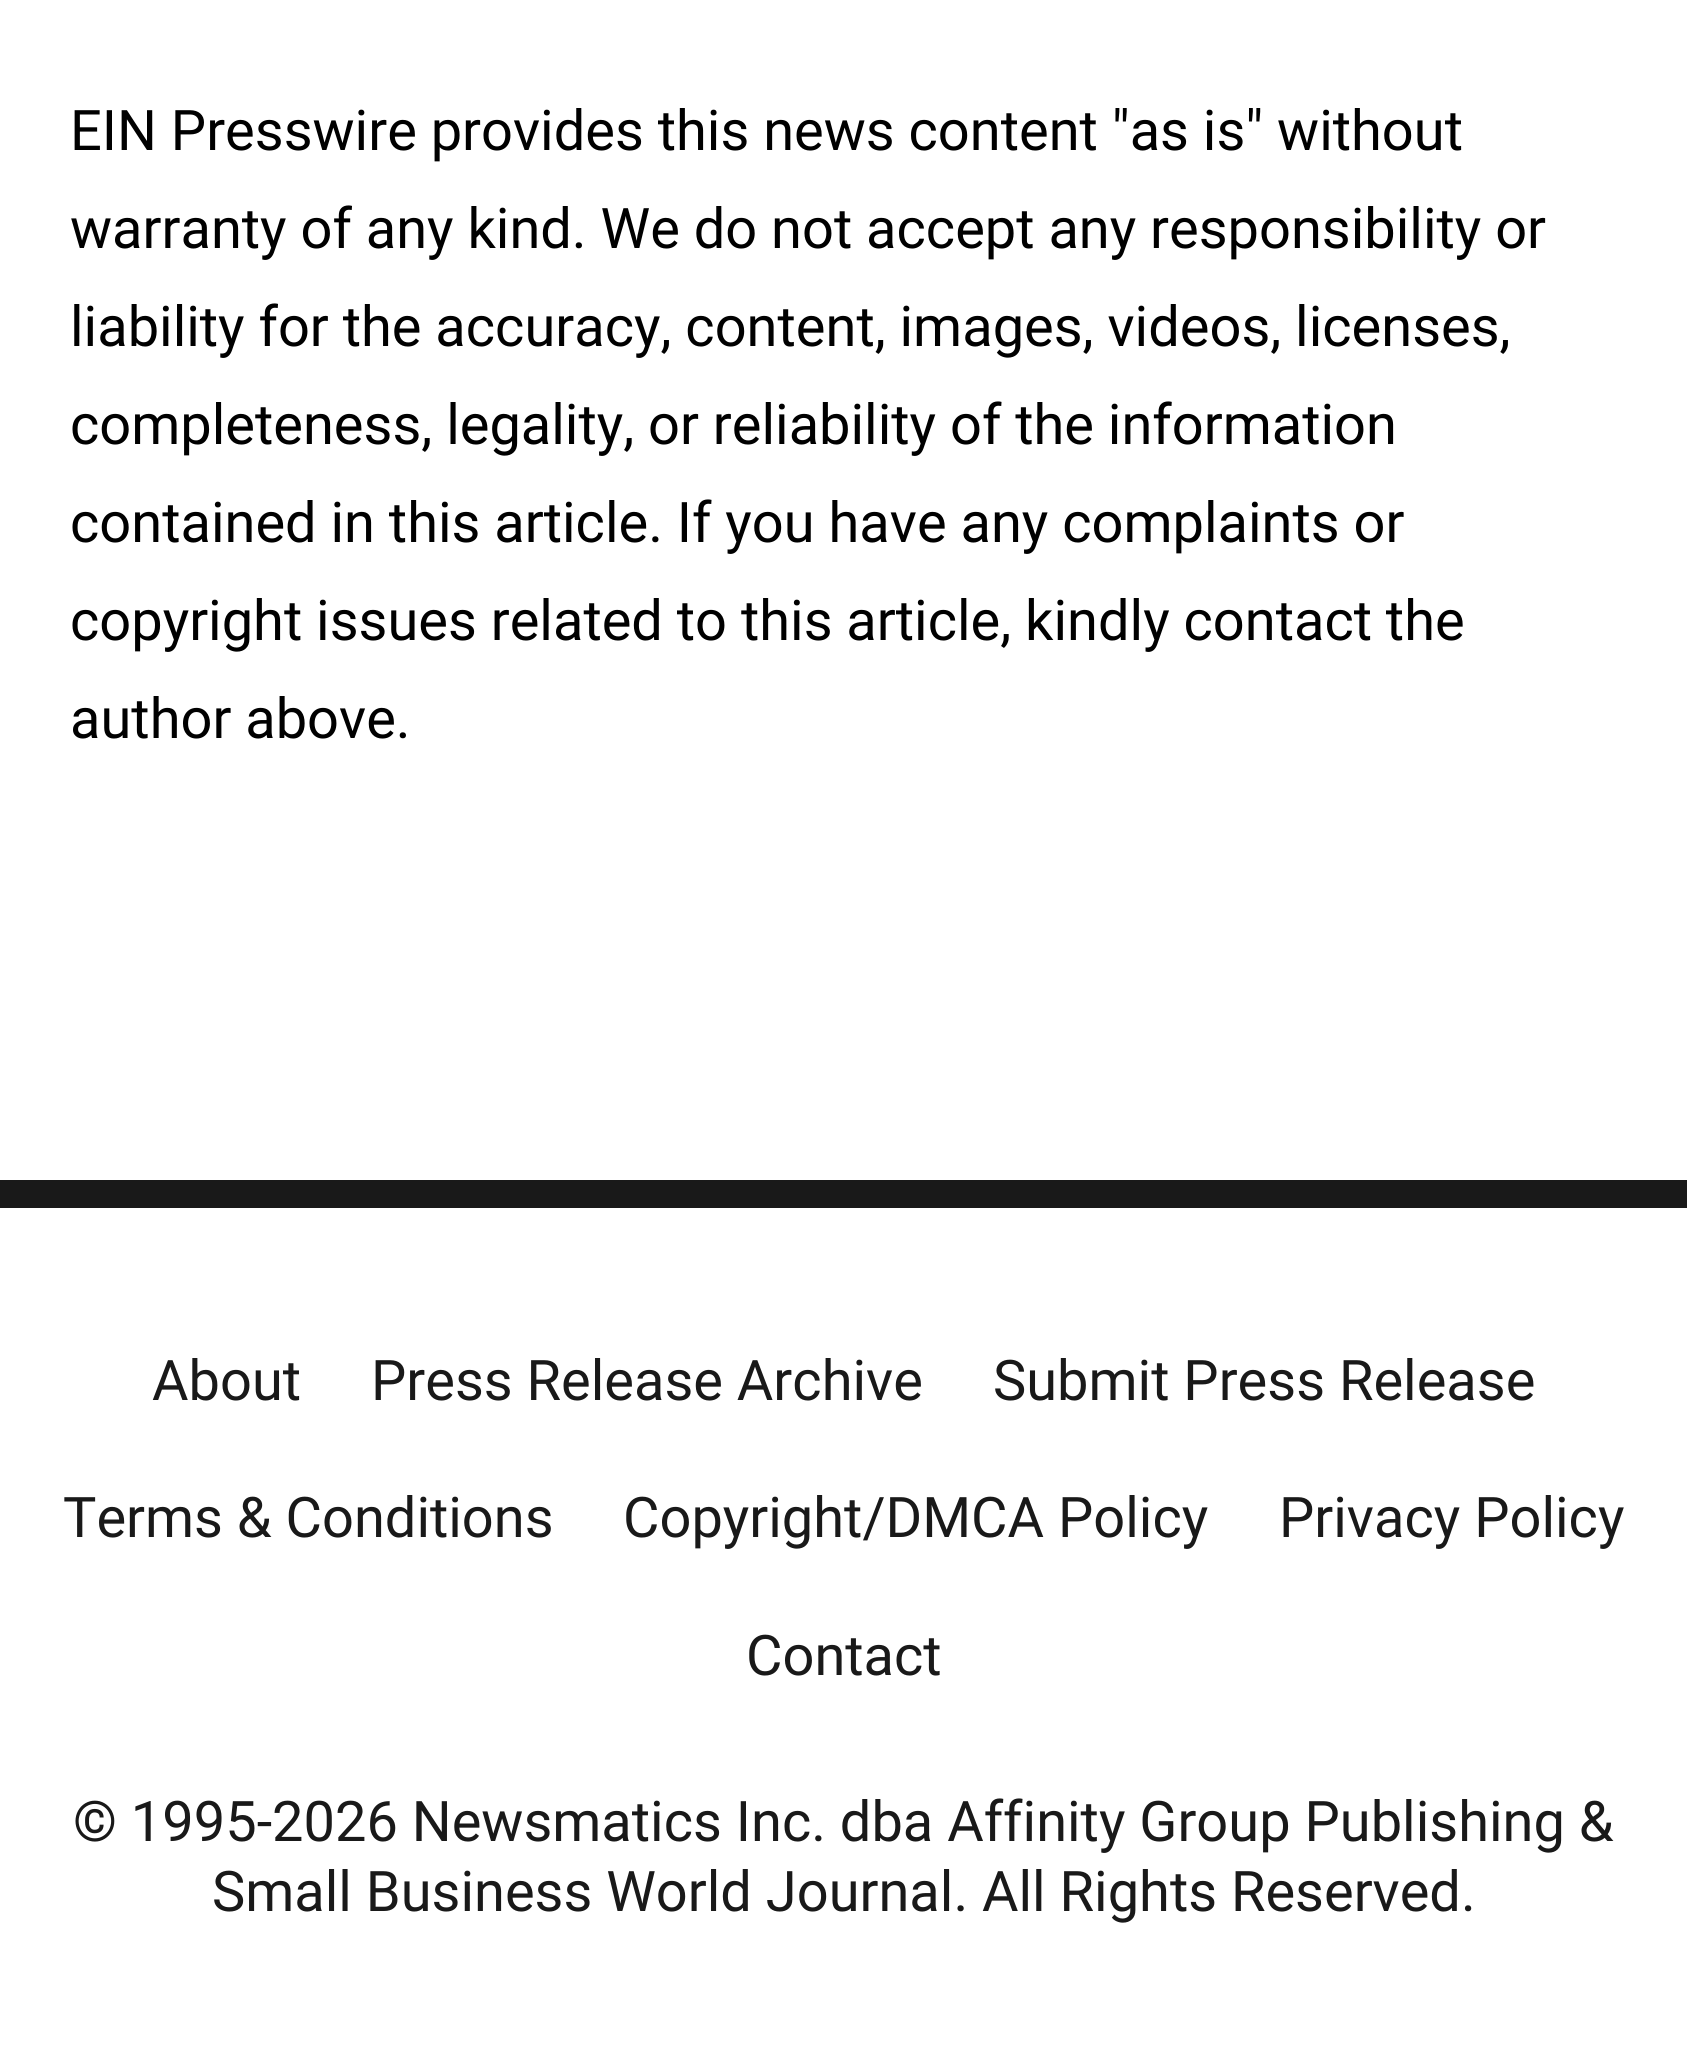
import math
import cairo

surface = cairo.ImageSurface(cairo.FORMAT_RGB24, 1687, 2066)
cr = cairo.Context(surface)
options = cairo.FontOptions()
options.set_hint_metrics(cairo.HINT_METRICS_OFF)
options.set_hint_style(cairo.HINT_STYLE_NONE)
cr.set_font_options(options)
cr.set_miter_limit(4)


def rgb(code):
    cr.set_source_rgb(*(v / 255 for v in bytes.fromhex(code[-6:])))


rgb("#ffffff")
cr.paint()
rgb("#191919")
cr.rectangle(0, 1180, 1687, 28)
cr.fill()
cr.select_font_face("Roboto")
cr.set_font_size(56)
rgb("#000000")
for x, y, s in [
    (70, 150, "EIN Presswire provides this news content \"as is\" without"),
    (70, 248, "warranty of any kind. We do not accept any responsibility or"),
    (70, 346, "liability for the accuracy, content, images, videos, licenses,"),
    (70, 444, "completeness, legality, or reliability of the information"),
    (70, 542, "contained in this article. If you have any complaints or"),
    (70, 640, "copyright issues related to this article, kindly contact the"),
    (70, 738, "author above."),
]:
    cr.move_to(x, y)
    cr.show_text(s)
rgb("#191919")
for x, y, s in [
    (152, 1400, "About"),
    (371, 1400, "Press Release Archive"),
    (993, 1400, "Submit Press Release"),
    (63, 1537, "Terms & Conditions"),
    (623, 1537, "Copyright/DMCA Policy"),
    (1279, 1537, "Privacy Policy"),
    (746, 1675, "Contact"),
    (73, 1841, "© 1995-2026 Newsmatics Inc. dba Affinity Group Publishing &"),
    (212, 1911, "Small Business World Journal. All Rights Reserved."),
]:
    cr.move_to(x, y)
    cr.show_text(s)
surface.write_to_png("page.png")
